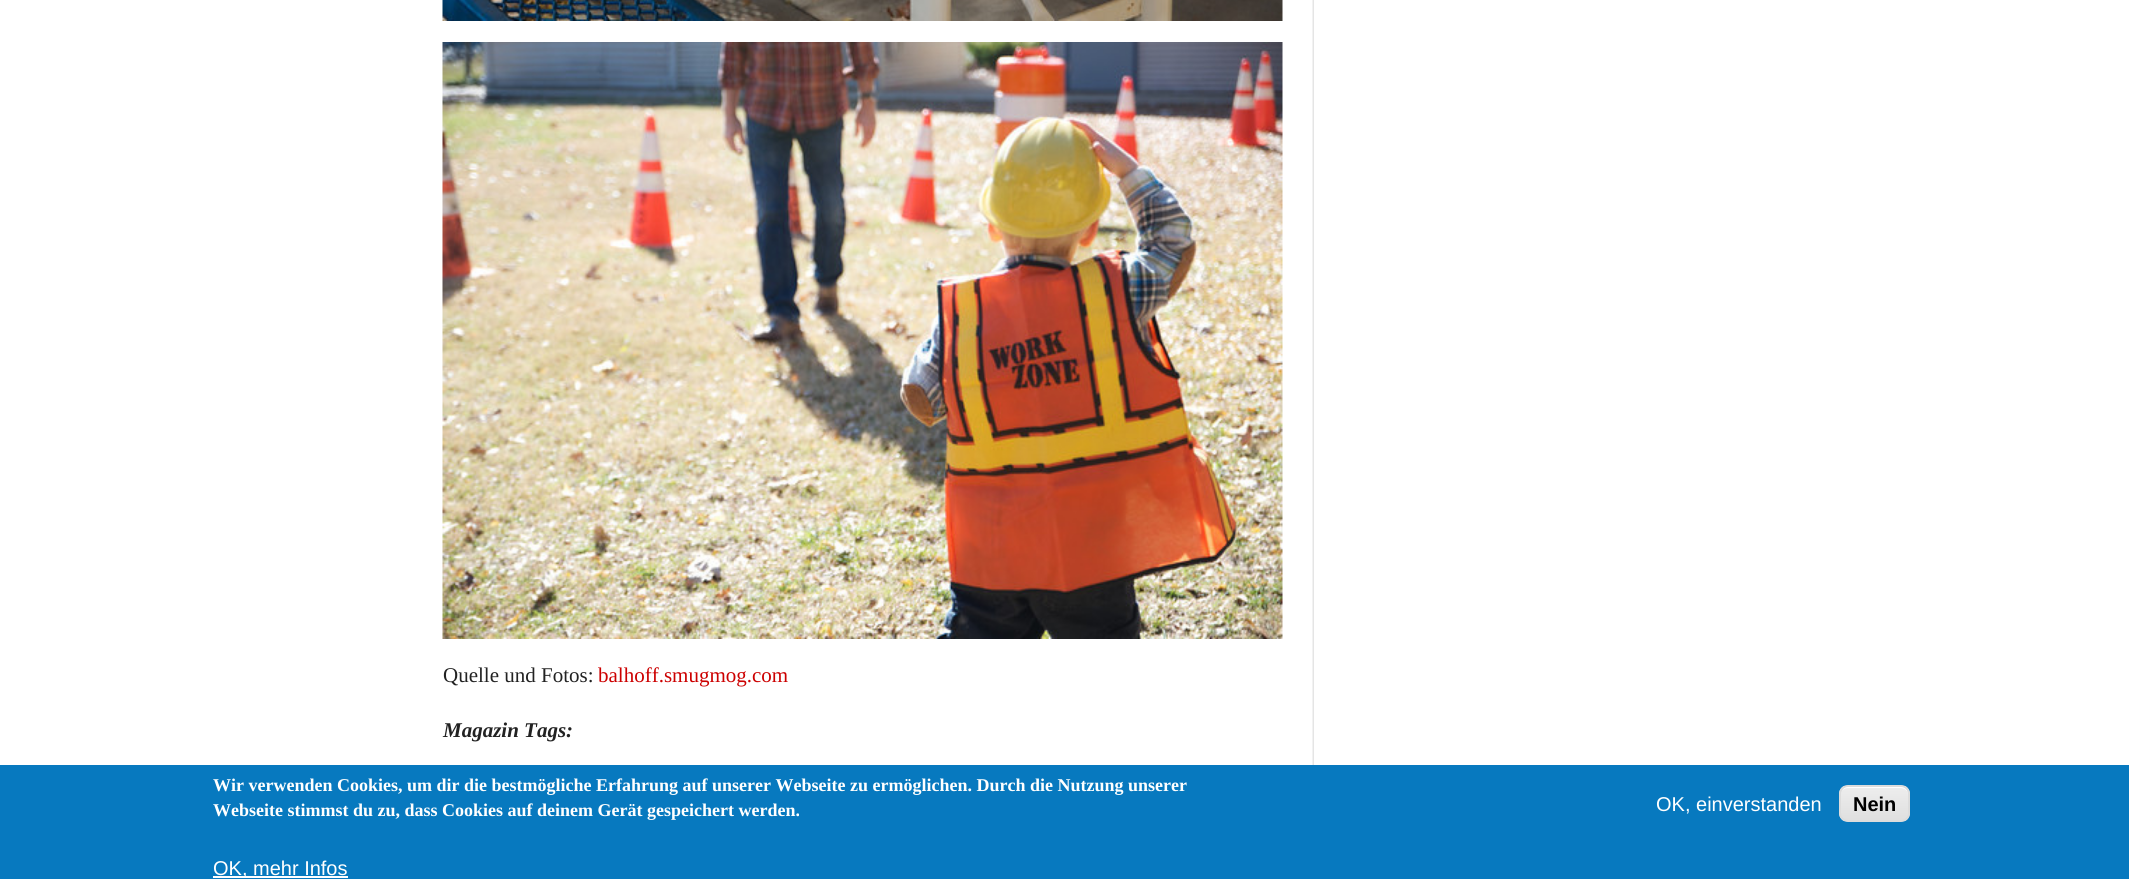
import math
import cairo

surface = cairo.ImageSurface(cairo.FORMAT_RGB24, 2129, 879)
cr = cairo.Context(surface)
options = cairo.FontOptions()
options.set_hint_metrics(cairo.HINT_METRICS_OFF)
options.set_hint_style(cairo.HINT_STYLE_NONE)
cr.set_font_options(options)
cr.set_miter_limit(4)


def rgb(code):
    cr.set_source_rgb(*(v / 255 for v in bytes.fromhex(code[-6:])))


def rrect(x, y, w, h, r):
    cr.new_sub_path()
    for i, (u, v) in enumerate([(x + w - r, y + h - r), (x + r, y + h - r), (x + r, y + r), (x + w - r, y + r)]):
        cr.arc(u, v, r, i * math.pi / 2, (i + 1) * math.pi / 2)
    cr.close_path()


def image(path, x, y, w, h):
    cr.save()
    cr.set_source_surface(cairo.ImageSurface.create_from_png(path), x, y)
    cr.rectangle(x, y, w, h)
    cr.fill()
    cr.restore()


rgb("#ffffff")
cr.paint()
image("img/1.png", 442, 0, 841, 21)
image("img/2.png", 442, 42, 841, 597)
image("img/3.png", 1312, 0, 2, 765)
rgb("#0779bf")
cr.rectangle(0, 765, 2129, 114)
cr.fill()
rgb("#ffffff")
cr.rectangle(213, 876, 135, 2)
cr.fill()
cr.save()
rrect(1839, 785, 71, 37, 9)
cr.clip()
gradient = cairo.LinearGradient(1874, 786, 1874, 821)
gradient.add_color_stop_rgba(0.05, 0.929, 0.929, 0.929, 1)
gradient.add_color_stop_rgba(1, 0.875, 0.875, 0.875, 1)
cr.set_source(gradient)
cr.rectangle(1839, 786, 71, 35)
cr.fill()
cr.restore()
cr.new_path()
cr.move_to(1848, 788)
cr.line_to(1900, 788)
cr.curve_to(1905, 788, 1908, 791, 1908, 795)
cr.line_to(1908, 794)
cr.curve_to(1908, 790, 1904, 786, 1900, 786)
cr.line_to(1849, 786)
cr.curve_to(1846, 786, 1843, 788, 1842, 791)
cr.curve_to(1843, 789, 1846, 788, 1848, 788)
cr.close_path()
cr.fill()
rrect(1840, 786, 69, 35, 8)
rgb("#dcdcdc")
cr.stroke()
cr.select_font_face("Liberation Serif")
cr.set_font_size(21)
rgb("#222222")
cr.move_to(443, 682)
cr.show_text("Quelle und Fotos:")
rgb("#cc0000")
cr.move_to(598, 682)
cr.show_text("balhoff.smugmog.com")
cr.select_font_face("Liberation Serif", cairo.FONT_SLANT_ITALIC, cairo.FONT_WEIGHT_BOLD)
rgb("#222222")
cr.move_to(443, 737)
cr.show_text("Magazin Tags:")
cr.select_font_face("Liberation Serif", cairo.FONT_SLANT_NORMAL, cairo.FONT_WEIGHT_BOLD)
cr.set_font_size(18)
rgb("#ffffff")
cr.move_to(213, 791)
cr.show_text("Wir verwenden Cookies, um dir die bestmögliche Erfahrung auf unserer Webseite zu ermöglichen. Durch die Nutzung unserer")
cr.move_to(213, 816)
cr.show_text("Webseite stimmst du zu, dass Cookies auf deinem Gerät gespeichert werden.")
cr.select_font_face("Liberation Sans")
cr.set_font_size(20)
cr.move_to(213, 875)
cr.show_text("OK, mehr Infos")
cr.move_to(1656, 811)
cr.show_text("OK, einverstanden")
cr.select_font_face("Liberation Sans", cairo.FONT_SLANT_NORMAL, cairo.FONT_WEIGHT_BOLD)
rgb("#000000")
cr.move_to(1853, 811)
cr.show_text("Nein")
surface.write_to_png("page.png")
